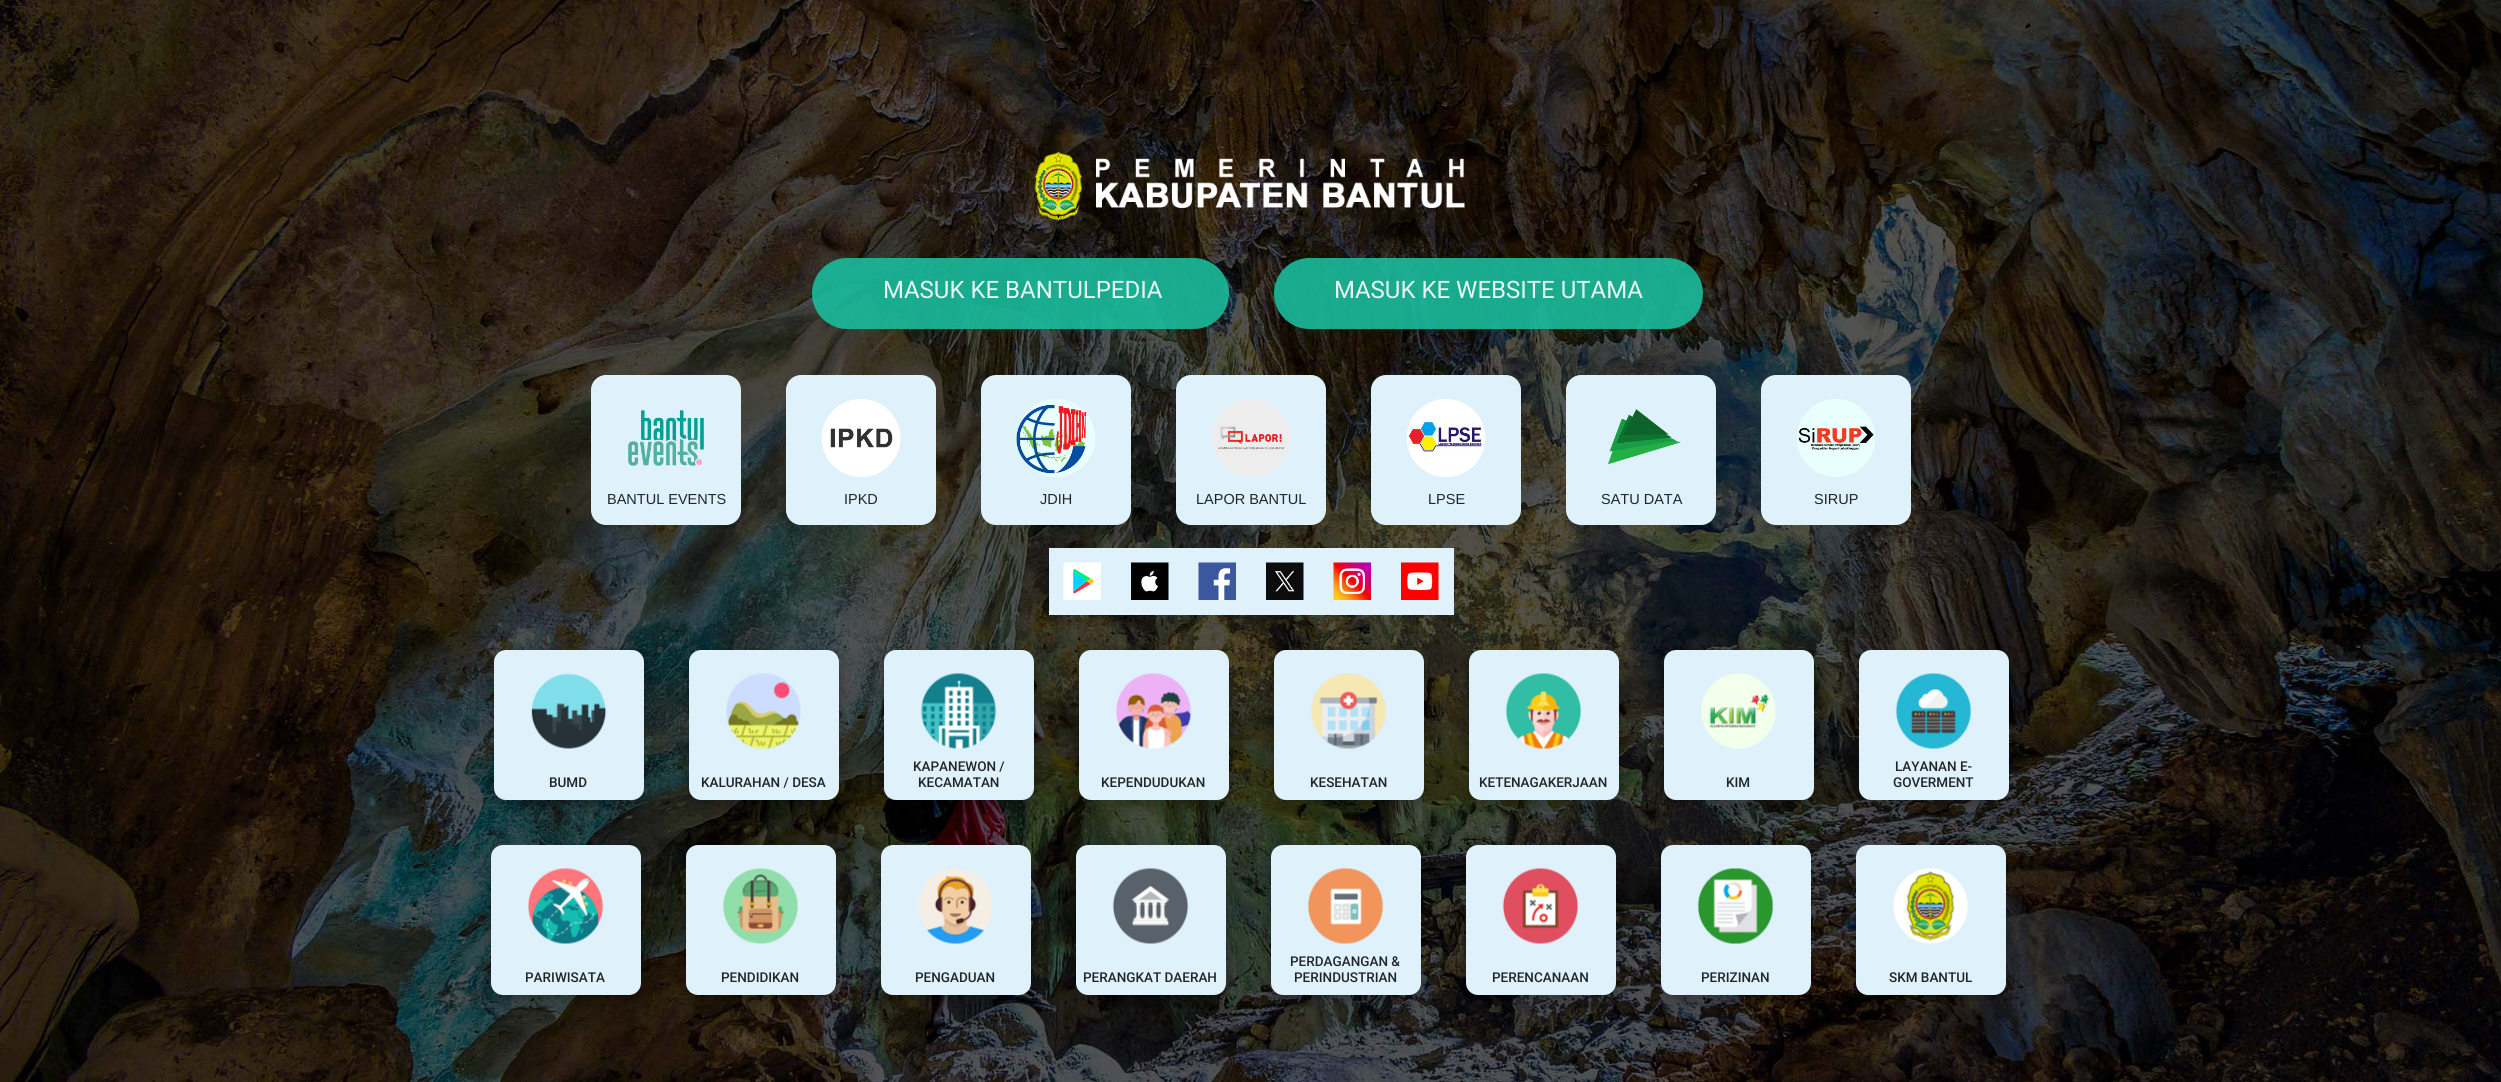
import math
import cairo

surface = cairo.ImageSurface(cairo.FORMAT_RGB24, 2501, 1082)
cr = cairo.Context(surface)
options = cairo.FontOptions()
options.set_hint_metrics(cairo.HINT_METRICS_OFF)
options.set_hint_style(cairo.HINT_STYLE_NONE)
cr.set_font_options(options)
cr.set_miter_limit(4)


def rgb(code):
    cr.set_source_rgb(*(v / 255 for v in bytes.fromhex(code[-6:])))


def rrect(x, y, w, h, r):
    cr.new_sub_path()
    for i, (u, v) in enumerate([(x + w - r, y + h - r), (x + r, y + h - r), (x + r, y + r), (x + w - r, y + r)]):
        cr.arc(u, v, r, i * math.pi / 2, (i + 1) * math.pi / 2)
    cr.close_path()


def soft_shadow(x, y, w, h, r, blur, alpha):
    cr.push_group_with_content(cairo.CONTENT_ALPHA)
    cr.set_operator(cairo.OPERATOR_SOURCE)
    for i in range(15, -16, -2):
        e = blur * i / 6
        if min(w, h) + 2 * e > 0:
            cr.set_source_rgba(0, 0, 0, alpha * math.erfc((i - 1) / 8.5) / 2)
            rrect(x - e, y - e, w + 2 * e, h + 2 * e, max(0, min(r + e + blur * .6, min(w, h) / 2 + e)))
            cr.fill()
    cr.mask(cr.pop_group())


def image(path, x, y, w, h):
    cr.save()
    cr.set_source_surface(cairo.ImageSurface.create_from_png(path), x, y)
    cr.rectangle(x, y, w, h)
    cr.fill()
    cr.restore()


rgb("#ffffff")
cr.paint()
image("img/1.png", 0, 0, 2501, 1082)
image("img/2.png", 1034, 151, 431, 71)
cr.set_source_rgba(0.102, 0.737, 0.612, 0.9)
rrect(812, 258, 417, 71, 35.5)
cr.fill()
rrect(1274, 258, 429, 71, 35.5)
cr.fill()
rgb("#dff1fb")
rrect(591, 375, 150, 150, 15)
cr.fill()
image("img/3.png", 628, 410, 76, 56)
rrect(786, 375, 150, 150, 15)
cr.fill()
image("img/4.png", 821, 399, 80, 78)
rrect(981, 375, 150, 150, 15)
cr.fill()
image("img/5.png", 1016, 399, 80, 78)
rrect(1176, 375, 150, 150, 15)
cr.fill()
image("img/6.png", 1212, 399, 79, 78)
rrect(1371, 375, 150, 150, 15)
cr.fill()
image("img/7.png", 1406, 399, 80, 78)
rrect(1566, 375, 150, 150, 15)
cr.fill()
image("img/8.png", 1608, 409, 73, 56)
rrect(1761, 375, 150, 150, 15)
cr.fill()
image("img/9.png", 1797, 399, 79, 78)
cr.rectangle(1049, 548, 405, 67)
cr.fill()
image("img/10.png", 1063, 562, 38, 38)
image("img/11.png", 1131, 562, 38, 38)
image("img/12.png", 1198, 562, 38, 38)
image("img/13.png", 1266, 562, 38, 38)
image("img/14.png", 1333, 562, 38, 38)
image("img/15.png", 1401, 562, 38, 38)
rgb("#000000")
soft_shadow(494, 659, 150, 150, 12, 15, 0.19)
soft_shadow(494, 656, 150, 150, 12, 6, 0.2)
rgb("#dff1fb")
rrect(494, 650, 150, 150, 12)
cr.fill()
image("img/16.png", 531, 673, 76, 76)
rgb("#000000")
soft_shadow(689, 659, 150, 150, 12, 15, 0.19)
soft_shadow(689, 656, 150, 150, 12, 6, 0.2)
rgb("#dff1fb")
rrect(689, 650, 150, 150, 12)
cr.fill()
image("img/17.png", 726, 673, 75, 76)
rgb("#000000")
soft_shadow(884, 659, 150, 150, 12, 15, 0.19)
soft_shadow(884, 656, 150, 150, 12, 6, 0.2)
rgb("#dff1fb")
rrect(884, 650, 150, 150, 12)
cr.fill()
image("img/18.png", 920, 673, 77, 76)
rgb("#000000")
soft_shadow(1079, 659, 150, 150, 12, 15, 0.19)
soft_shadow(1079, 656, 150, 150, 12, 6, 0.2)
rgb("#dff1fb")
rrect(1079, 650, 150, 150, 12)
cr.fill()
image("img/19.png", 1116, 673, 76, 76)
rgb("#000000")
soft_shadow(1274, 659, 150, 150, 12, 15, 0.19)
soft_shadow(1274, 656, 150, 150, 12, 6, 0.2)
rgb("#dff1fb")
rrect(1274, 650, 150, 150, 12)
cr.fill()
image("img/20.png", 1311, 673, 75, 76)
rgb("#000000")
soft_shadow(1469, 659, 150, 150, 12, 15, 0.19)
soft_shadow(1469, 656, 150, 150, 12, 6, 0.2)
rgb("#dff1fb")
rrect(1469, 650, 150, 150, 12)
cr.fill()
image("img/21.png", 1505, 673, 77, 76)
rgb("#000000")
soft_shadow(1664, 659, 150, 150, 12, 15, 0.19)
soft_shadow(1664, 656, 150, 150, 12, 6, 0.2)
rgb("#dff1fb")
rrect(1664, 650, 150, 150, 12)
cr.fill()
image("img/22.png", 1701, 673, 75, 76)
rgb("#000000")
soft_shadow(1859, 659, 150, 150, 12, 15, 0.19)
soft_shadow(1859, 656, 150, 150, 12, 6, 0.2)
rgb("#dff1fb")
rrect(1859, 650, 150, 150, 12)
cr.fill()
image("img/23.png", 1895, 673, 77, 76)
rgb("#000000")
soft_shadow(491, 854, 150, 150, 12, 15, 0.19)
soft_shadow(491, 851, 150, 150, 12, 6, 0.2)
rgb("#dff1fb")
rrect(491, 845, 150, 150, 12)
cr.fill()
image("img/24.png", 528, 868, 76, 76)
rgb("#000000")
soft_shadow(686, 854, 150, 150, 12, 15, 0.19)
soft_shadow(686, 851, 150, 150, 12, 6, 0.2)
rgb("#dff1fb")
rrect(686, 845, 150, 150, 12)
cr.fill()
image("img/25.png", 723, 868, 76, 76)
rgb("#000000")
soft_shadow(881, 854, 150, 150, 12, 15, 0.19)
soft_shadow(881, 851, 150, 150, 12, 6, 0.2)
rgb("#dff1fb")
rrect(881, 845, 150, 150, 12)
cr.fill()
image("img/26.png", 918, 868, 75, 76)
rgb("#000000")
soft_shadow(1076, 854, 150, 150, 12, 15, 0.19)
soft_shadow(1076, 851, 150, 150, 12, 6, 0.2)
rgb("#dff1fb")
rrect(1076, 845, 150, 150, 12)
cr.fill()
image("img/27.png", 1112, 868, 77, 76)
rgb("#000000")
soft_shadow(1271, 854, 150, 150, 12, 15, 0.19)
soft_shadow(1271, 851, 150, 150, 12, 6, 0.2)
rgb("#dff1fb")
rrect(1271, 845, 150, 150, 12)
cr.fill()
image("img/28.png", 1307, 868, 77, 76)
rgb("#000000")
soft_shadow(1466, 854, 150, 150, 12, 15, 0.19)
soft_shadow(1466, 851, 150, 150, 12, 6, 0.2)
rgb("#dff1fb")
rrect(1466, 845, 150, 150, 12)
cr.fill()
image("img/29.png", 1502, 868, 77, 76)
rgb("#000000")
soft_shadow(1661, 854, 150, 150, 12, 15, 0.19)
soft_shadow(1661, 851, 150, 150, 12, 6, 0.2)
rgb("#dff1fb")
rrect(1661, 845, 150, 150, 12)
cr.fill()
image("img/30.png", 1697, 868, 77, 76)
rgb("#000000")
soft_shadow(1856, 854, 150, 150, 12, 15, 0.19)
soft_shadow(1856, 851, 150, 150, 12, 6, 0.2)
rgb("#dff1fb")
rrect(1856, 845, 150, 150, 12)
cr.fill()
image("img/31.png", 1893, 868, 75, 76)
cr.select_font_face("Roboto")
cr.set_font_size(24)
rgb("#e8f7f4")
cr.move_to(883, 298)
cr.show_text("MASUK KE BANTULPEDIA")
cr.move_to(1334, 298)
cr.show_text("MASUK KE WEBSITE UTAMA")
cr.select_font_face("Liberation Sans")
cr.set_font_size(14.5)
rgb("#212529")
for x, y, s in [
    (607, 504, "BANTUL EVENTS"),
    (844, 504, "IPKD"),
    (1040, 504, "JDIH"),
    (1196, 504, "LAPOR BANTUL"),
    (1428, 504, "LPSE"),
    (1601, 504, "SATU DATA"),
    (1814, 504, "SIRUP"),
]:
    cr.move_to(x, y)
    cr.show_text(s)
cr.select_font_face("Roboto Medium")
cr.set_font_size(13.5)
for x, y, s in [
    (549, 787, "BUMD"),
    (701, 787, "KALURAHAN / DESA"),
    (913, 771, "KAPANEWON /"),
    (918, 787, "KECAMATAN"),
    (1101, 787, "KEPENDUDUKAN"),
    (1310, 787, "KESEHATAN"),
    (1479, 787, "KETENAGAKERJAAN"),
    (1726, 787, "KIM"),
    (1895, 771, "LAYANAN E-"),
    (1893, 787, "GOVERMENT"),
    (525, 982, "PARIWISATA"),
    (721, 982, "PENDIDIKAN"),
    (915, 982, "PENGADUAN"),
    (1083, 982, "PERANGKAT DAERAH"),
    (1290, 966, "PERDAGANGAN &"),
    (1294, 982, "PERINDUSTRIAN"),
    (1492, 982, "PERENCANAAN"),
    (1701, 982, "PERIZINAN"),
    (1889, 982, "SKM BANTUL"),
]:
    cr.move_to(x, y)
    cr.show_text(s)
surface.write_to_png("page.png")
